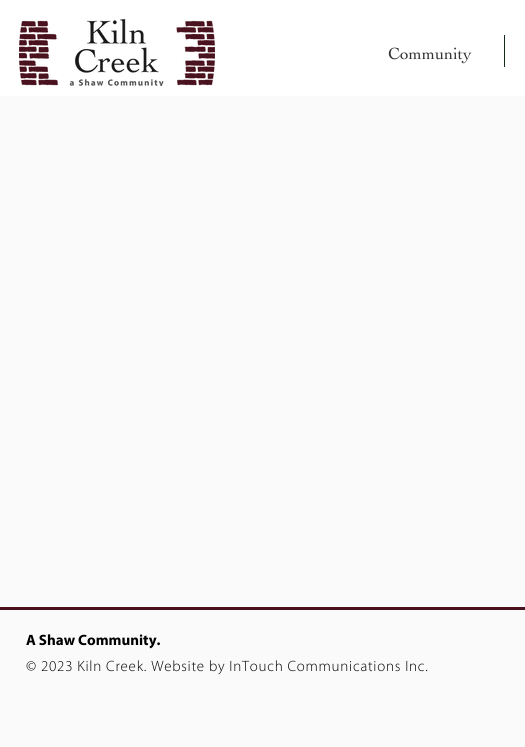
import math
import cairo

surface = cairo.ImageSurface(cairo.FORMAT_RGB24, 525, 747)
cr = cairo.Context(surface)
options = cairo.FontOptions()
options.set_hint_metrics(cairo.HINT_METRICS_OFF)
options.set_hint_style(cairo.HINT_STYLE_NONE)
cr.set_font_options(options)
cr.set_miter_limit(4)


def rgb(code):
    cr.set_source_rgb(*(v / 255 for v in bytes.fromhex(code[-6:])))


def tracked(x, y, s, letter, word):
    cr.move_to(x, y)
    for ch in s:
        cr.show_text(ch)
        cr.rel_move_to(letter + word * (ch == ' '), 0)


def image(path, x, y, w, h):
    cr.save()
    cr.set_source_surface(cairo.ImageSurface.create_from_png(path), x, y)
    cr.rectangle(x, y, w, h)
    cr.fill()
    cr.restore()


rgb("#fafafa")
cr.paint()
rgb("#ffffff")
cr.rectangle(0, 0, 525, 96)
cr.fill()
image("img/1.png", 19, 18, 196, 68)
rgb("#15291b")
cr.rectangle(504, 35, 1, 32)
cr.fill()
rgb("#49121c")
cr.rectangle(0, 607, 525, 3)
cr.fill()
cr.select_font_face("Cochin")
cr.set_font_size(17)
rgb("#333333")
cr.move_to(388, 59)
cr.show_text("Community")
cr.select_font_face("Myriad", cairo.FONT_SLANT_NORMAL, cairo.FONT_WEIGHT_BOLD)
cr.set_font_size(15)
rgb("#000000")
cr.move_to(26, 645)
cr.show_text("A Shaw Community.")
cr.select_font_face("Myriad Light")
tracked(26, 671, "© 2023 Kiln Creek. Website by InTouch Communications Inc.", 0.75, 0)
surface.write_to_png("page.png")
